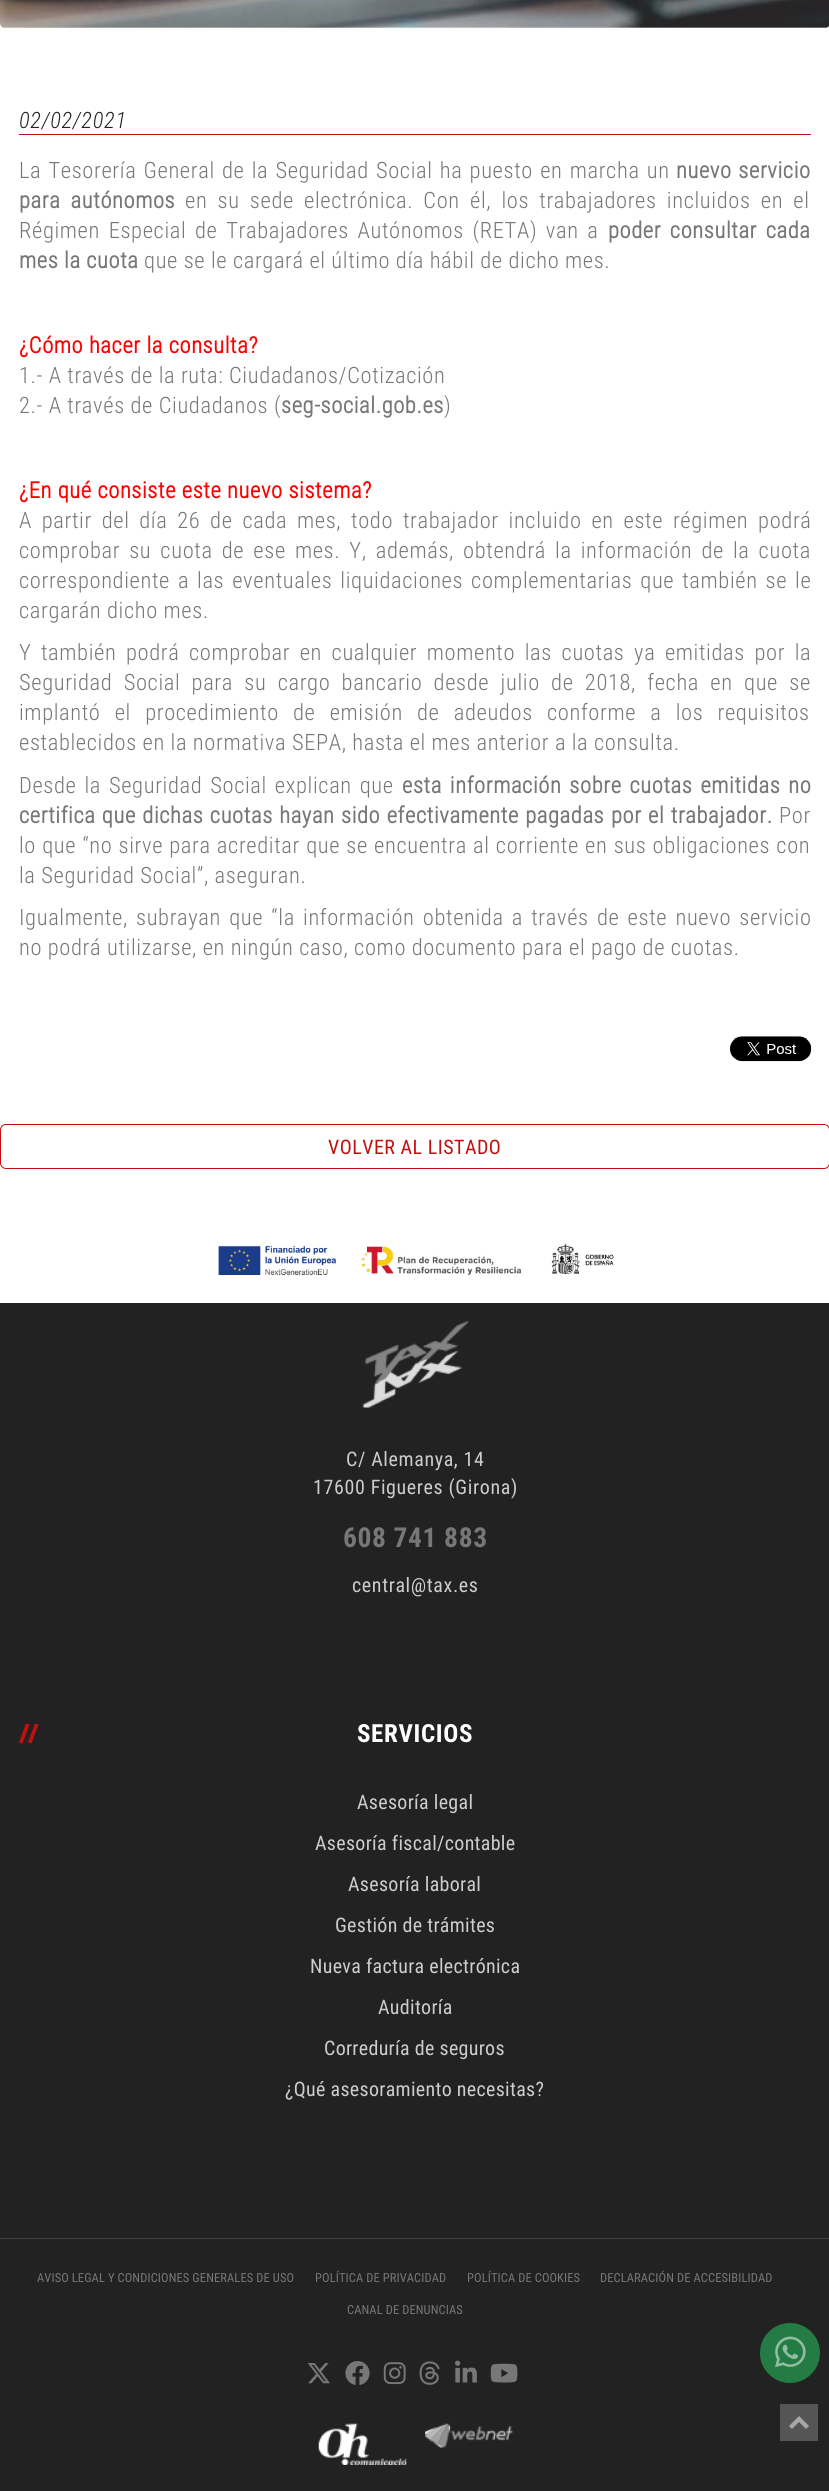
import math
import cairo

surface = cairo.ImageSurface(cairo.FORMAT_RGB24, 829, 2491)
cr = cairo.Context(surface)
options = cairo.FontOptions()
options.set_hint_metrics(cairo.HINT_METRICS_OFF)
options.set_hint_style(cairo.HINT_STYLE_NONE)
cr.set_font_options(options)
cr.set_miter_limit(4)


def rgb(code):
    cr.set_source_rgb(*(v / 255 for v in bytes.fromhex(code[-6:])))


def tracked(x, y, s, letter, word):
    cr.move_to(x, y)
    for ch in s:
        cr.show_text(ch)
        cr.rel_move_to(letter + word * (ch == ' '), 0)


def rrect(x, y, w, h, r):
    cr.new_sub_path()
    for i, (u, v) in enumerate([(x + w - r, y + h - r), (x + r, y + h - r), (x + r, y + r), (x + w - r, y + r)]):
        cr.arc(u, v, r, i * math.pi / 2, (i + 1) * math.pi / 2)
    cr.close_path()


def image(path, x, y, w, h):
    cr.save()
    cr.set_source_surface(cairo.ImageSurface.create_from_png(path), x, y)
    cr.rectangle(x, y, w, h)
    cr.fill()
    cr.restore()


rgb("#ffffff")
cr.paint()
image("img/1.png", 0, 0, 829, 29)
rgb("#c1110e")
cr.rectangle(19, 134, 792, 1)
cr.fill()
image("img/2.png", 730, 1036, 82, 26)
rrect(0.5, 1124.5, 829, 44, 5.5)
cr.set_line_width(1)
cr.stroke()
image("img/3.png", 218, 1243, 396, 33)
rgb("#222222")
cr.rectangle(0, 1303, 829, 1188)
cr.fill()
image("img/4.png", 362, 1321, 107, 87)
rgb("#c1110e")
cr.new_path()
cr.move_to(26, 1723.5)
cr.line_to(29.5, 1724.5)
cr.line_to(22.5, 1743.5)
cr.line_to(19, 1742.5)
cr.close_path()
cr.fill()
cr.new_path()
cr.move_to(35, 1723.5)
cr.line_to(38.5, 1724.5)
cr.line_to(31.5, 1743.5)
cr.line_to(28, 1742.5)
cr.close_path()
cr.fill()
rgb("#434343")
cr.rectangle(0, 2238, 829, 1)
cr.fill()
image("img/5.png", 307, 2363, 23, 21)
image("img/6.png", 345, 2361, 25, 24)
image("img/7.png", 383, 2362, 23, 23)
image("img/8.png", 419, 2361, 21, 24)
image("img/9.png", 455, 2360, 22, 23)
image("img/10.png", 490, 2363, 28, 20)
image("img/11.png", 318, 2423, 89, 42)
image("img/12.png", 425, 2423, 88, 25)
rgb("#247b44")
cr.arc(790, 2353, 30, 0, 2 * math.pi)
cr.fill()
image("img/13.png", 775, 2336, 31, 32)
rgb("#555555")
cr.rectangle(780, 2404, 38, 37)
cr.fill()
rgb("#a7a7a7")
cr.new_path()
cr.move_to(799, 2416)
cr.line_to(809, 2426)
cr.line_to(806, 2429)
cr.line_to(799, 2422)
cr.line_to(792, 2429)
cr.line_to(789, 2426)
cr.close_path()
cr.fill()
cr.select_font_face("Roboto Condensed Light", cairo.FONT_SLANT_ITALIC)
cr.set_font_size(22.5)
rgb("#222222")
tracked(19, 128, "02/02/2021", 0.62, 0)
cr.select_font_face("Roboto Condensed Light")
rgb("#777777")
tracked(19, 178, "La Tesorería General de la Seguridad Social ha puesto en marcha un", 0.62, 1.5)
cr.select_font_face("Roboto Condensed", cairo.FONT_SLANT_NORMAL, cairo.FONT_WEIGHT_BOLD)
tracked(676, 178, "nuevo servicio", 0.62, 1)
tracked(19, 208, "para autónomos", 0.62, 4.5)
cr.select_font_face("Roboto Condensed Light")
tracked(185, 208, "en su sede electrónica. Con él, los trabajadores incluidos en el", 0.62, 4.5)
tracked(19, 238, "Régimen Especial de Trabajadores Autónomos (RETA) van a", 0.62, 3)
cr.select_font_face("Roboto Condensed", cairo.FONT_SLANT_NORMAL, cairo.FONT_WEIGHT_BOLD)
tracked(608, 238, "poder consultar cada", 0.62, 3)
tracked(19, 268, "mes la cuota", 0.62, 0)
cr.select_font_face("Roboto Condensed Light")
tracked(144, 268, "que se le cargará el último día hábil de dicho mes.", 0.62, 0)
cr.select_font_face("Roboto Condensed", cairo.FONT_SLANT_NORMAL, cairo.FONT_WEIGHT_BOLD)
rgb("#ff0000")
tracked(19, 353, "¿Cómo hacer la consulta?", 0.62, 0)
cr.select_font_face("Roboto Condensed Light")
rgb("#777777")
tracked(19, 383, "1.- A través de la ruta: Ciudadanos/Cotización", 0.62, 0)
tracked(19, 413, "2.- A través de Ciudadanos (", 0.62, 0)
cr.select_font_face("Roboto Condensed", cairo.FONT_SLANT_NORMAL, cairo.FONT_WEIGHT_BOLD)
tracked(281, 413, "seg-social.gob.es", 0.62, 0)
cr.select_font_face("Roboto Condensed Light")
tracked(444, 413, ")", 0.62, 0)
cr.select_font_face("Roboto Condensed", cairo.FONT_SLANT_NORMAL, cairo.FONT_WEIGHT_BOLD)
rgb("#ff0000")
tracked(19, 498, "¿En qué consiste este nuevo sistema?", 0.62, 0)
cr.select_font_face("Roboto Condensed Light")
rgb("#777777")
tracked(19, 528, "A partir del día 26 de cada mes, todo trabajador incluido en este régimen podrá", 0.62, 4.1)
tracked(19, 558, "comprobar su cuota de ese mes. Y, además, obtendrá la información de la cuota", 0.62, 3.4)
tracked(19, 588, "correspondiente a las eventuales liquidaciones complementarias que también se le", 0.62, 2.25)
tracked(19, 618, "cargarán dicho mes.", 0.62, 0)
tracked(19, 660, "Y también podrá comprobar en cualquier momento las cuotas ya emitidas por la", 0.62, 3.9)
tracked(19, 690, "Seguridad Social para su cargo bancario desde julio de 2018, fecha en que se", 0.62, 5.6)
tracked(19, 720, "implantó el procedimiento de emisión de adeudos conforme a los requisitos", 0.62, 8.5)
tracked(19, 750, "establecidos en la normativa SEPA, hasta el mes anterior a la consulta.", 0.62, 0)
tracked(19, 793, "Desde la Seguridad Social explican que", 0.62, 2.25)
cr.select_font_face("Roboto Condensed", cairo.FONT_SLANT_NORMAL, cairo.FONT_WEIGHT_BOLD)
tracked(402, 793, "esta información sobre cuotas emitidas no", 0.62, 2.25)
tracked(19, 823, "certifica que dichas cuotas hayan sido efectivamente pagadas", 0.62, 0.75)
tracked(611, 823, "por el trabajador.", 0.62, 0.75)
cr.select_font_face("Roboto Condensed Light")
tracked(779, 823, "Por", 0.62, 0)
tracked(19, 853, "lo que “no sirve para acreditar que se encuentra al corriente en sus obligaciones con", 0.62, 0.5)
tracked(19, 883, "la Seguridad Social”, aseguran.", 0.62, 0)
tracked(19, 925, "Igualmente, subrayan que “la información obtenida a través de este nuevo servicio", 0.62, 2.5)
tracked(19, 955, "no podrá utilizarse, en ningún caso, como documento para el pago de cuotas.", 0.62, 0)
cr.select_font_face("Roboto Condensed")
cr.set_font_size(20)
rgb("#c1110e")
tracked(328, 1154, "VOLVER AL LISTADO", 0.5, 0)
rgb("#cdcdcd")
tracked(346, 1466, "C/ Alemanya, 14", 0.62, 0)
tracked(313, 1494, "17600 Figueres (Girona)", 0.62, 0)
cr.select_font_face("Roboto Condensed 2", cairo.FONT_SLANT_NORMAL, cairo.FONT_WEIGHT_BOLD)
cr.set_font_size(27.5)
rgb("#777777")
tracked(343, 1547, "608 741 883", 0.62, 0)
cr.select_font_face("Roboto Condensed")
cr.set_font_size(20)
rgb("#cdcdcd")
tracked(352, 1592, "central@tax.es", 0.62, 0)
cr.select_font_face("Roboto Condensed 2", cairo.FONT_SLANT_NORMAL, cairo.FONT_WEIGHT_BOLD)
cr.set_font_size(25)
rgb("#ffffff")
tracked(357, 1742, "SERVICIOS", 0.62, 0)
cr.select_font_face("Roboto Condensed")
cr.set_font_size(20)
rgb("#cdcdcd")
for x, y, s in [
    (357, 1809, "Asesoría legal"),
    (315, 1850, "Asesoría fiscal/contable"),
    (348, 1891, "Asesoría laboral"),
    (335, 1932, "Gestión de trámites"),
    (310, 1973, "Nueva factura electrónica"),
    (378, 2014, "Auditoría"),
    (324, 2055, "Correduría de seguros"),
    (285, 2096, "¿Qué asesoramiento necesitas?"),
]:
    tracked(x, y, s, 0.3, 0)
cr.set_font_size(12.5)
rgb("#777777")
for x, y, s in [
    (37, 2282, "AVISO LEGAL Y CONDICIONES GENERALES DE USO"),
    (315, 2282, "POLÍTICA DE PRIVACIDAD"),
    (467, 2282, "POLÍTICA DE COOKIES"),
    (600, 2282, "DECLARACIÓN DE ACCESIBILIDAD"),
    (347, 2314, "CANAL DE DENUNCIAS"),
]:
    tracked(x, y, s, 0.1, 0)
surface.write_to_png("page.png")
